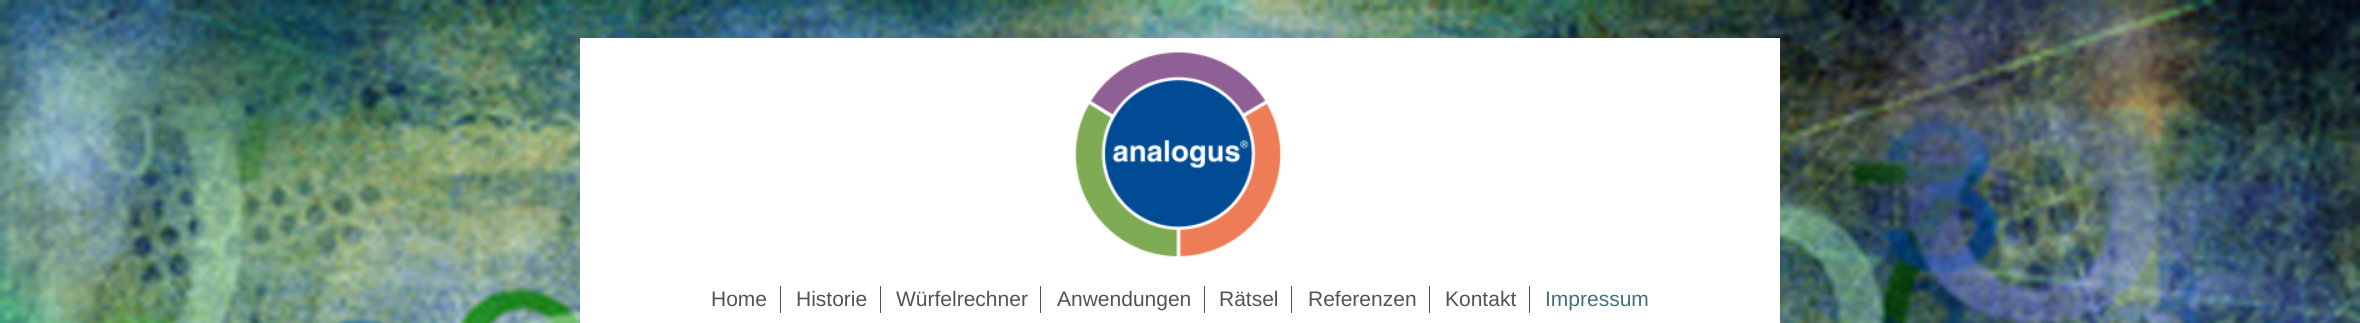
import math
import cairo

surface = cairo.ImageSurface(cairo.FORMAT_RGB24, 2360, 323)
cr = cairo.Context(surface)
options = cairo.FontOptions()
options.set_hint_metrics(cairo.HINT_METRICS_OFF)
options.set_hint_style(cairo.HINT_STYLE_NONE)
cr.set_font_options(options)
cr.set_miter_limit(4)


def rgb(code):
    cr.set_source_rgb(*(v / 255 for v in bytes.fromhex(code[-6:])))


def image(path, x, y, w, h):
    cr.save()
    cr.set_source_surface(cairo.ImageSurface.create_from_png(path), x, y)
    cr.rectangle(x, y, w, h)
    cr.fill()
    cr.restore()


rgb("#ffffff")
cr.paint()
image("img/1.png", 0, 0, 2360, 323)
rgb("#ffffff")
cr.rectangle(580, 38, 1200, 285)
cr.fill()
image("img/2.png", 1075, 51, 207, 206)
for x, y, w, h, color in [
    (780, 286, 1, 27, "#535353"),
    (880, 286, 1, 27, "#535353"),
    (1040, 286, 1, 27, "#535353"),
    (1204, 286, 1, 27, "#535353"),
    (1291, 286, 1, 27, "#535353"),
    (1429, 286, 1, 27, "#535353"),
    (1529, 286, 1, 27, "#535353"),
]:
    rgb(color)
    cr.rectangle(x, y, w, h)
    cr.fill()
cr.select_font_face("Liberation Sans")
cr.set_font_size(21)
for x, y, s in [
    (711, 306, "Home"),
    (796, 306, "Historie"),
    (896, 306, "Würfelrechner"),
    (1057, 306, "Anwendungen"),
    (1219, 306, "Rätsel"),
    (1308, 306, "Referenzen"),
    (1445, 306, "Kontakt"),
]:
    cr.move_to(x, y)
    cr.show_text(s)
rgb("#47717a")
cr.move_to(1545, 306)
cr.show_text("Impressum")
surface.write_to_png("page.png")
